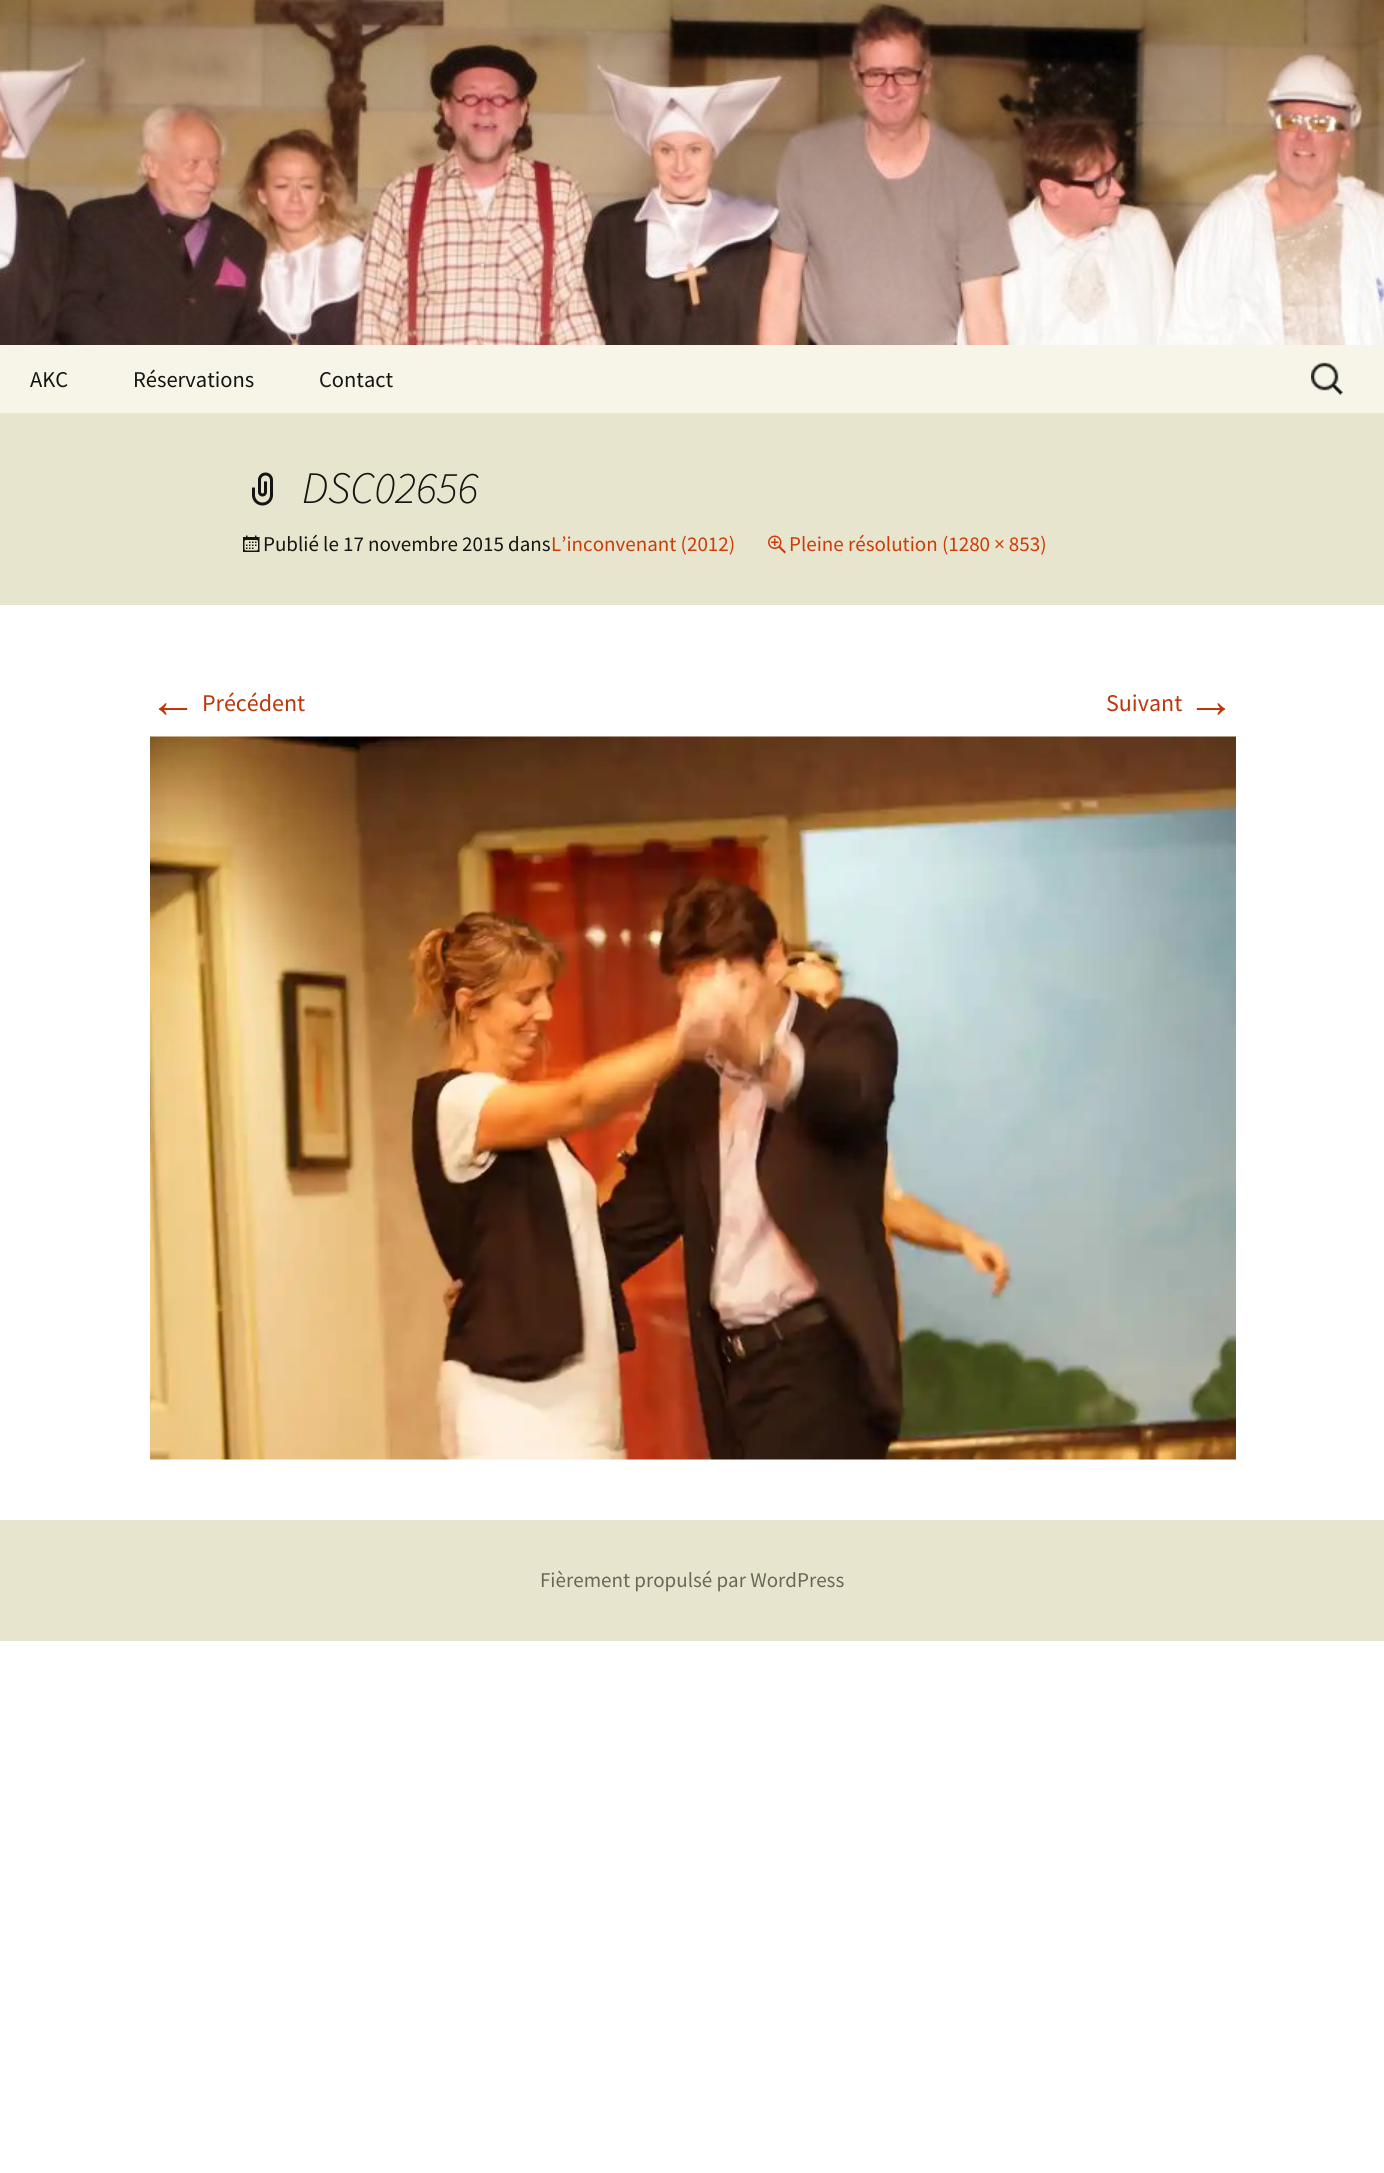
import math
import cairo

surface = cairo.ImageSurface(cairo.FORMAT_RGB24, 1384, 2173)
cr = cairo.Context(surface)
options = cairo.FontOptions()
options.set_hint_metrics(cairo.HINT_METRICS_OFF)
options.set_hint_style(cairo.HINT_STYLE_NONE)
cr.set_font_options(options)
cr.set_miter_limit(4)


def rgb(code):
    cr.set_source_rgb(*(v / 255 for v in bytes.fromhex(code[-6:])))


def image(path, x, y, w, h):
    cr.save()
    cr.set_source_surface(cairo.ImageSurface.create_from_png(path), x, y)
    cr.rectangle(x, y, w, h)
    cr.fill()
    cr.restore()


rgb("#ffffff")
cr.paint()
image("img/1.png", 0, 0, 1384, 345)
rgb("#f7f5e7")
cr.rectangle(0, 345, 1384, 68)
cr.fill()
image("img/2.png", 1311, 362, 32, 33)
rgb("#e8e5ce")
cr.rectangle(0, 413, 1384, 192)
cr.fill()
image("img/3.png", 252, 472, 21, 34)
image("img/4.png", 243, 535, 17, 17)
image("img/5.png", 768, 535, 18, 19)
image("img/6.png", 150, 736, 1086, 724)
cr.rectangle(0, 1520, 1384, 121)
cr.fill()
cr.select_font_face("Source Sans Pro")
cr.set_font_size(22.5)
rgb("#141412")
for x, y, s in [
    (30, 387, "AKC"),
    (133, 387, "Réservations"),
    (319, 387, "Contact"),
]:
    cr.move_to(x, y)
    cr.show_text(s)
cr.select_font_face("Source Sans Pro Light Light", cairo.FONT_SLANT_ITALIC)
cr.set_font_size(45)
cr.move_to(302, 503)
cr.show_text("DSC02656")
cr.select_font_face("Source Sans Pro")
cr.set_font_size(21)
cr.move_to(263, 551)
cr.show_text("Publié le 17 novembre 2015 dans")
rgb("#ca3c08")
cr.move_to(551, 551)
cr.show_text("L’inconvenant (2012)")
cr.move_to(789, 551)
cr.show_text("Pleine résolution (1280 × 853)")
cr.select_font_face("Liberation Sans")
cr.set_font_size(48)
rgb("#bc360a")
cr.move_to(149, 717)
cr.show_text("←")
cr.select_font_face("Source Sans Pro")
cr.set_font_size(24)
cr.move_to(202, 711)
cr.show_text("Précédent")
cr.move_to(1106, 711)
cr.show_text("Suivant")
cr.select_font_face("Liberation Sans")
cr.set_font_size(48)
cr.move_to(1187, 717)
cr.show_text("→")
cr.select_font_face("Source Sans Pro")
cr.set_font_size(21)
rgb("#686758")
cr.move_to(540, 1587)
cr.show_text("Fièrement propulsé par WordPress")
surface.write_to_png("page.png")
